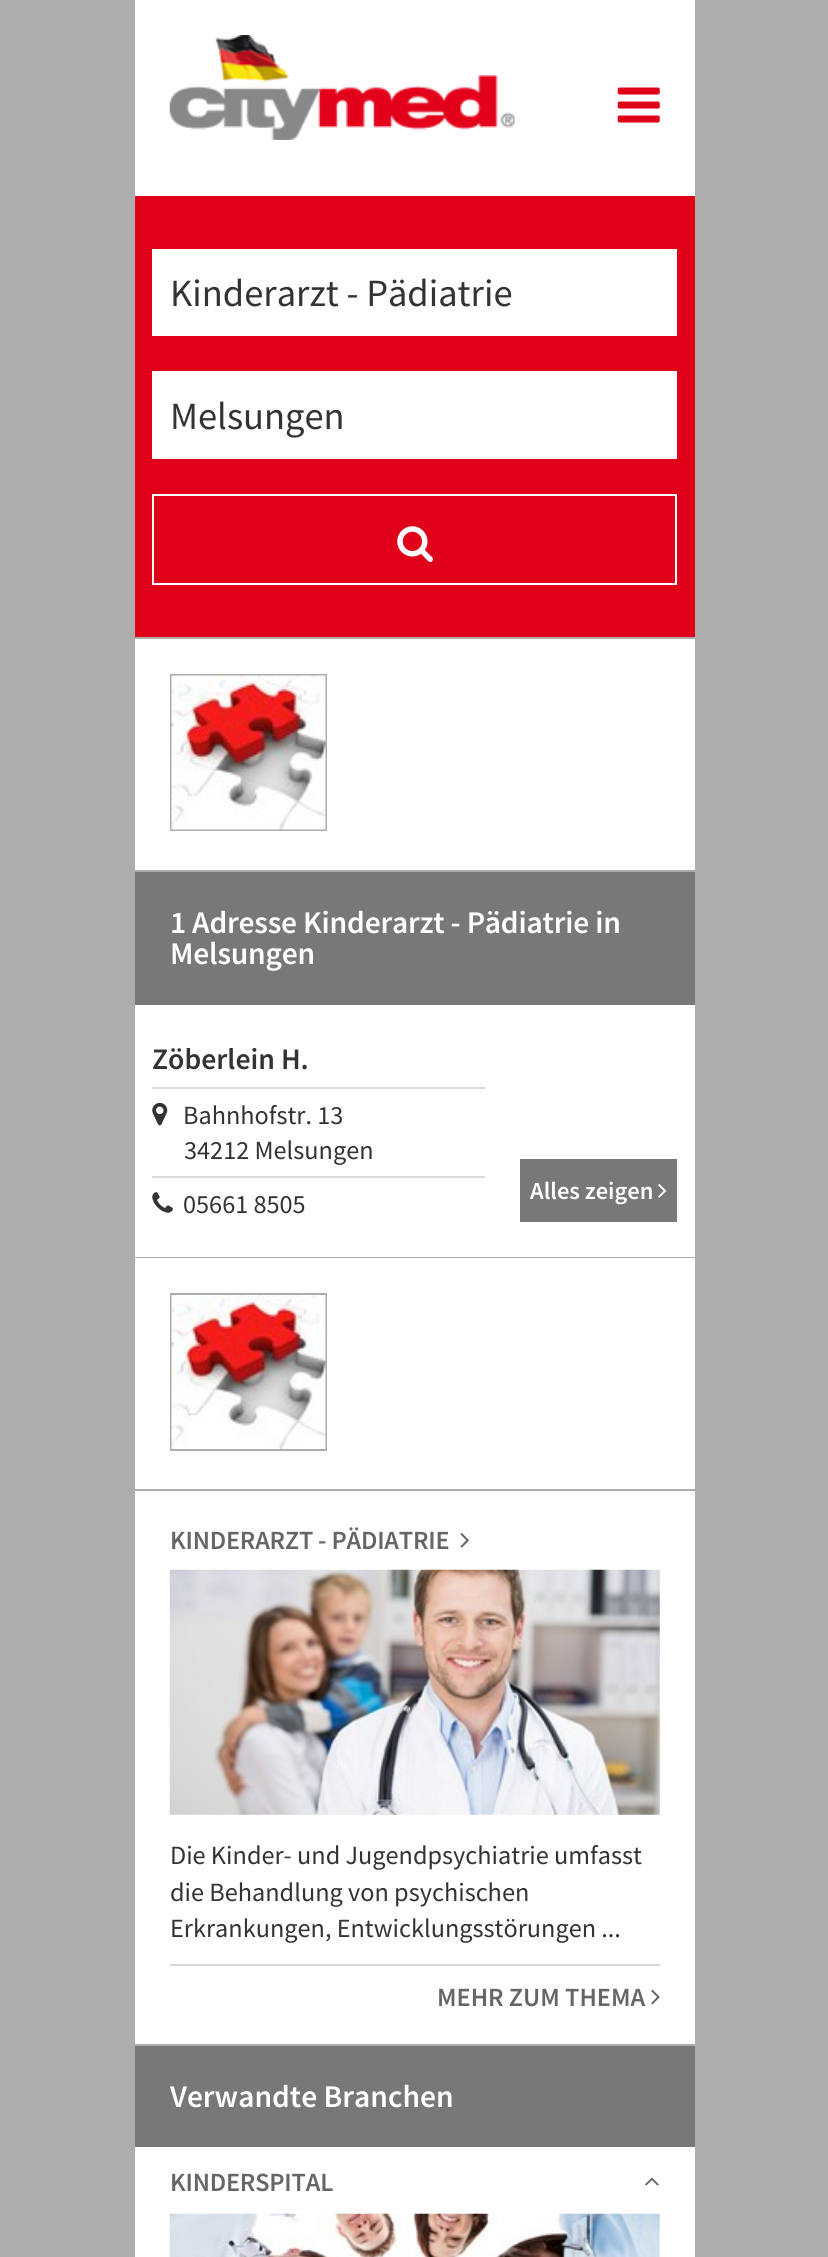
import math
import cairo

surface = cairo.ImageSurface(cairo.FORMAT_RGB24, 828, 2257)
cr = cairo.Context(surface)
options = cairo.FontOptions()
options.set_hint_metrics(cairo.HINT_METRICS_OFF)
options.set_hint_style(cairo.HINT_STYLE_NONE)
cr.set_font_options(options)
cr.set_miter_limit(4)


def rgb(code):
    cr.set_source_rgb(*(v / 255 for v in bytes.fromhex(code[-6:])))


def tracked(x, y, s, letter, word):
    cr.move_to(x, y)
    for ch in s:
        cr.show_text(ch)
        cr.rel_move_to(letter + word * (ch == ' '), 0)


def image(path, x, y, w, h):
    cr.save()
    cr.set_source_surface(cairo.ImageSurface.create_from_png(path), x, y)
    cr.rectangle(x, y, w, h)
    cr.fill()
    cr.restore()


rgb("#adadad")
cr.paint()
rgb("#ffffff")
cr.rectangle(135, 0, 560, 196)
cr.fill()
image("img/1.png", 169, 35, 346, 105)
image("img/2.png", 617, 87, 43, 36)
for x, y, w, h, color in [
    (135, 196, 560, 441, "#e10019"),
    (152, 249, 525, 87, "#ffffff"),
    (152, 371, 525, 88, "#ffffff"),
]:
    rgb(color)
    cr.rectangle(x, y, w, h)
    cr.fill()
cr.rectangle(153, 495, 523, 89)
cr.stroke()
image("img/3.png", 397, 526, 36, 36)
cr.rectangle(135, 639, 560, 618)
cr.fill()
rgb("#adadad")
cr.rectangle(135, 870, 560, 2)
cr.fill()
cr.rectangle(171, 675, 155, 155)
cr.stroke()
image("img/4.png", 171, 675, 155, 155)
rgb("#787878")
cr.rectangle(135, 872, 560, 133)
cr.fill()
rgb("#d9d9d9")
cr.rectangle(152, 1087, 333, 2)
cr.fill()
image("img/5.png", 152, 1102, 16, 24)
cr.rectangle(152, 1176, 333, 2)
cr.fill()
image("img/6.png", 152, 1192, 21, 21)
rgb("#787878")
cr.rectangle(520, 1159, 157, 63)
cr.fill()
image("img/7.png", 658, 1184, 9, 14)
rgb("#ffffff")
cr.rectangle(135, 1258, 560, 231)
cr.fill()
cr.rectangle(171, 1294, 155, 156)
rgb("#adadad")
cr.stroke()
image("img/8.png", 171, 1295, 155, 154)
rgb("#ffffff")
cr.rectangle(135, 1491, 560, 553)
cr.fill()
image("img/9.png", 460, 1533, 9, 15)
image("img/10.png", 169, 1569, 491, 246)
rgb("#d9d9d9")
cr.rectangle(170, 1964, 490, 2)
cr.fill()
image("img/11.png", 651, 1989, 9, 16)
rgb("#787878")
cr.rectangle(135, 2046, 560, 101)
cr.fill()
rgb("#ffffff")
cr.rectangle(135, 2147, 560, 110)
cr.fill()
image("img/12.png", 645, 2177, 14, 9)
image("img/13.png", 169, 2213, 491, 44)
cr.select_font_face("Source Sans Pro")
cr.set_font_size(38.5)
rgb("#333333")
cr.move_to(170, 306)
cr.show_text("Kinderarzt - Pädiatrie")
cr.move_to(170, 429)
cr.show_text("Melsungen")
cr.select_font_face("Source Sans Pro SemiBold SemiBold")
cr.set_font_size(31.5)
rgb("#ffffff")
tracked(170, 933, "1 Adresse Kinderarzt - Pädiatrie in", -0.2, 0)
tracked(170, 964, "Melsungen", -0.2, 0)
cr.set_font_size(29.75)
rgb("#333333")
cr.move_to(152, 1069)
cr.show_text("Zöberlein H.")
cr.select_font_face("Source Sans Pro")
cr.set_font_size(26.25)
for x, y, s in [
    (183, 1124, "Bahnhofstr. 13"),
    (184, 1159, "34212 Melsungen"),
    (183, 1213, "05661 8505"),
]:
    cr.move_to(x, y)
    cr.show_text(s)
cr.select_font_face("Source Sans Pro SemiBold SemiBold")
cr.set_font_size(24.5)
rgb("#ffffff")
cr.move_to(530, 1199)
cr.show_text("Alles zeigen")
cr.set_font_size(26.25)
rgb("#666666")
tracked(170, 1549, "KINDERARZT - PÄDIATRIE", -0.2, 0)
cr.select_font_face("Source Sans Pro")
rgb("#333333")
for x, y, s in [
    (170, 1864, "Die Kinder- und Jugendpsychiatrie umfasst"),
    (170, 1901, "die Behandlung von psychischen"),
    (170, 1937, "Erkrankungen, Entwicklungsstörungen ..."),
]:
    cr.move_to(x, y)
    cr.show_text(s)
cr.select_font_face("Source Sans Pro SemiBold SemiBold")
rgb("#666666")
cr.move_to(437, 2006)
cr.show_text("MEHR ZUM THEMA")
cr.set_font_size(31.5)
rgb("#ffffff")
cr.move_to(170, 2107)
cr.show_text("Verwandte Branchen")
cr.set_font_size(26.25)
rgb("#666666")
tracked(170, 2191, "KINDERSPITAL", -0.2, 0)
surface.write_to_png("page.png")
